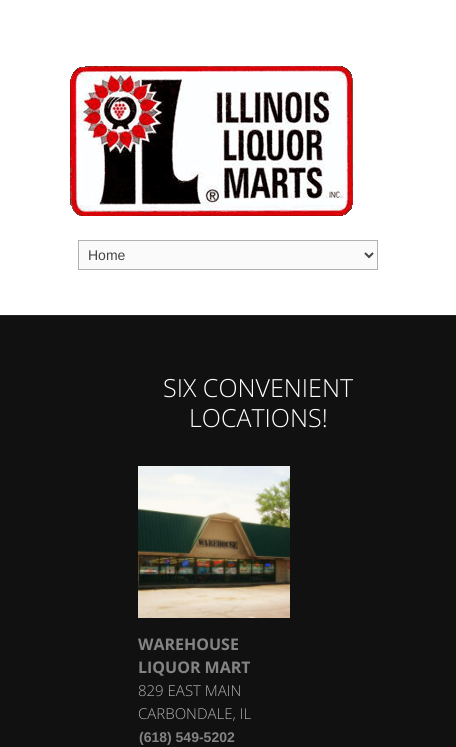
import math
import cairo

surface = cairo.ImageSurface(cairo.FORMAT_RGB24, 456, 747)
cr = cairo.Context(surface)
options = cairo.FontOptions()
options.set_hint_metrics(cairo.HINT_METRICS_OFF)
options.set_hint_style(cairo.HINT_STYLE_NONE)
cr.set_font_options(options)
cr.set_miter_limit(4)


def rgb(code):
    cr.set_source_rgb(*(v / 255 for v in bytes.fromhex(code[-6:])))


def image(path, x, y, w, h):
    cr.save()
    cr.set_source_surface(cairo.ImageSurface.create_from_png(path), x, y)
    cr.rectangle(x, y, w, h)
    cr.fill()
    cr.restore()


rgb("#ffffff")
cr.paint()
rgb("#222222")
cr.rectangle(0, 315, 456, 1)
cr.fill()
image("img/1.png", 70, 66, 283, 150)
rgb("#fafafa")
cr.rectangle(78.5, 240.5, 299, 29)
cr.fill_preserve()
rgb("#b1b1b1")
cr.set_line_width(1)
cr.stroke()
cr.new_path()
cr.move_to(365, 253)
cr.line_to(369, 257)
cr.line_to(373, 253)
rgb("#444444")
cr.set_line_width(2)
cr.stroke()
rgb("#111111")
cr.rectangle(0, 316, 456, 431)
cr.fill()
image("img/2.png", 138, 466, 152, 152)
cr.select_font_face("Liberation Sans")
cr.set_font_size(14)
rgb("#444444")
cr.move_to(88, 260)
cr.show_text("Home")
cr.select_font_face("Open Sans Light")
cr.set_font_size(25)
rgb("#ffffff")
cr.move_to(163, 397)
cr.show_text("SIX CONVENIENT")
cr.move_to(189, 427)
cr.show_text("LOCATIONS!")
cr.select_font_face("Open Sans", cairo.FONT_SLANT_NORMAL, cairo.FONT_WEIGHT_BOLD)
cr.set_font_size(16)
rgb("#848484")
cr.move_to(138, 650)
cr.show_text("WAREHOUSE")
cr.move_to(138, 673)
cr.show_text("LIQUOR MART")
cr.select_font_face("Open Sans Light")
cr.set_font_size(15)
rgb("#b0b0b0")
cr.move_to(138, 696)
cr.show_text("829 EAST MAIN")
cr.move_to(138, 719)
cr.show_text("CARBONDALE, IL")
cr.select_font_face("Liberation Sans", cairo.FONT_SLANT_NORMAL, cairo.FONT_WEIGHT_BOLD)
cr.set_font_size(14)
rgb("#848484")
cr.move_to(139, 742)
cr.show_text("(618) 549-5202")
surface.write_to_png("page.png")
